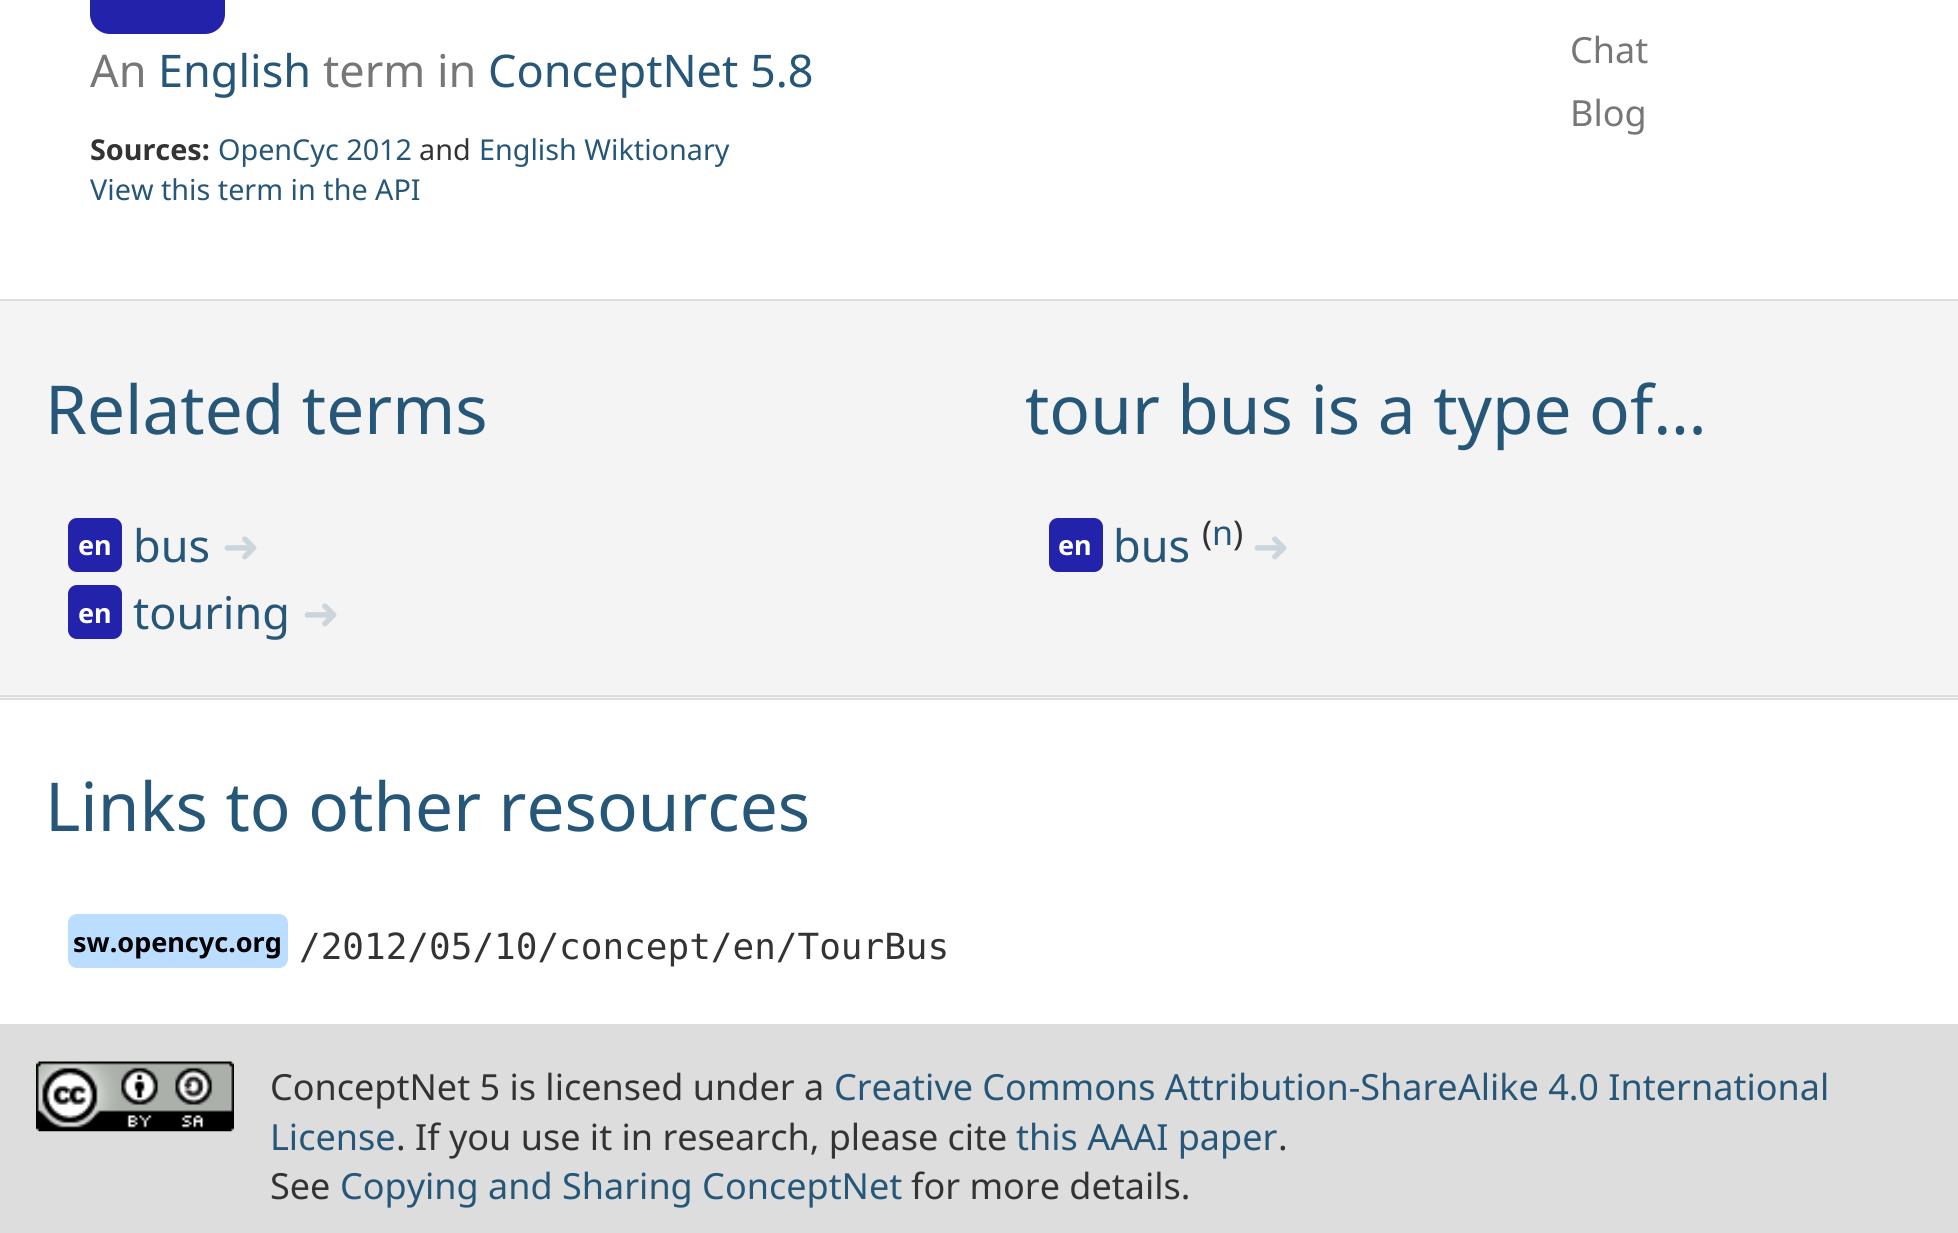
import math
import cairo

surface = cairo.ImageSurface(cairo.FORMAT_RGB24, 1958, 1233)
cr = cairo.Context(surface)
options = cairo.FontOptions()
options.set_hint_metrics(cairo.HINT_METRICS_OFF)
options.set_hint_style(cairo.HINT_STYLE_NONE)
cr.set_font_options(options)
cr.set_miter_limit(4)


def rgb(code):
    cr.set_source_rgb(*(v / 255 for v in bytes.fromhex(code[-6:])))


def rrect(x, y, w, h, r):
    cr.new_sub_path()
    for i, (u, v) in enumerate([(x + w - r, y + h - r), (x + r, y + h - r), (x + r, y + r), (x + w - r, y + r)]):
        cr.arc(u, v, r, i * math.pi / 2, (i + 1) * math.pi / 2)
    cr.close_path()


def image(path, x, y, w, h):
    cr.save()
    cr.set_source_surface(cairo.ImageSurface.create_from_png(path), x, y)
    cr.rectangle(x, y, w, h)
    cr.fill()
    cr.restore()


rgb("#ffffff")
cr.paint()
rgb("#2222aa")
rrect(90, -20, 135, 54, 20)
cr.fill()
for x, y, w, h, color in [
    (0, 301, 1958, 397, "#f4f4f4"),
    (0, 299, 1958, 2, "#dddddd"),
    (0, 695, 1958, 2, "#dddddd"),
]:
    rgb(color)
    cr.rectangle(x, y, w, h)
    cr.fill()
rgb("#2222aa")
rrect(68, 518, 54, 54, 9)
cr.fill()
rrect(68, 585, 54, 54, 9)
cr.fill()
rrect(1049, 518, 54, 54, 9)
cr.fill()
rgb("#dddddd")
cr.rectangle(0, 698, 1958, 2)
cr.fill()
cr.rectangle(0, 1024, 1958, 209)
cr.fill()
rgb("#bbddff")
rrect(68, 914, 220, 54, 9)
cr.fill()
image("img/1.png", 36, 1061, 198, 71)
cr.select_font_face("Noto Sans")
cr.set_font_size(45)
rgb("#777777")
cr.move_to(90, 87)
cr.show_text("An")
rgb("#265778")
cr.move_to(158, 87)
cr.show_text("English")
rgb("#777777")
cr.move_to(323, 87)
cr.show_text("term in")
rgb("#265778")
cr.move_to(488, 87)
cr.show_text("ConceptNet 5.8")
cr.select_font_face("Noto Sans", cairo.FONT_SLANT_NORMAL, cairo.FONT_WEIGHT_BOLD)
cr.set_font_size(28.75)
rgb("#333333")
cr.move_to(90, 160)
cr.show_text("Sources:")
cr.select_font_face("Noto Sans")
rgb("#265778")
cr.move_to(218, 160)
cr.show_text("OpenCyc 2012")
rgb("#333333")
cr.move_to(419, 160)
cr.show_text("and")
rgb("#265778")
cr.move_to(479, 160)
cr.show_text("English Wiktionary")
cr.move_to(90, 200)
cr.show_text("View this term in the API")
cr.set_font_size(36)
rgb("#777777")
cr.move_to(1570, 63)
cr.show_text("Chat")
cr.move_to(1570, 126)
cr.show_text("Blog")
cr.set_font_size(67.5)
rgb("#265778")
cr.move_to(45, 434)
cr.show_text("Related terms")
cr.select_font_face("Noto Sans", cairo.FONT_SLANT_NORMAL, cairo.FONT_WEIGHT_BOLD)
cr.set_font_size(27)
rgb("#ffffff")
cr.move_to(78, 555)
cr.show_text("en")
cr.select_font_face("Noto Sans")
cr.set_font_size(45)
rgb("#265778")
cr.move_to(133, 562)
cr.show_text("bus")
cr.select_font_face("DejaVu Sans")
rgb("#cbd5db")
cr.move_to(222, 562)
cr.show_text("➜")
cr.select_font_face("Noto Sans", cairo.FONT_SLANT_NORMAL, cairo.FONT_WEIGHT_BOLD)
cr.set_font_size(27)
rgb("#ffffff")
cr.move_to(78, 623)
cr.show_text("en")
cr.select_font_face("Noto Sans")
cr.set_font_size(45)
rgb("#265778")
cr.move_to(133, 629)
cr.show_text("touring")
cr.select_font_face("DejaVu Sans")
rgb("#cbd5db")
cr.move_to(302, 629)
cr.show_text("➜")
cr.select_font_face("Noto Sans")
cr.set_font_size(67.5)
rgb("#265778")
cr.move_to(1025, 434)
cr.show_text("tour bus is a type of…")
cr.select_font_face("Noto Sans", cairo.FONT_SLANT_NORMAL, cairo.FONT_WEIGHT_BOLD)
cr.set_font_size(27)
rgb("#ffffff")
cr.move_to(1058, 555)
cr.show_text("en")
cr.select_font_face("Noto Sans")
cr.set_font_size(45)
rgb("#265778")
cr.move_to(1113, 562)
cr.show_text("bus")
cr.set_font_size(34)
rgb("#333333")
cr.move_to(1202, 545)
cr.show_text("(")
rgb("#265778")
cr.move_to(1212, 545)
cr.show_text("n")
rgb("#333333")
cr.move_to(1233, 545)
cr.show_text(")")
cr.select_font_face("DejaVu Sans")
cr.set_font_size(45)
rgb("#cbd5db")
cr.move_to(1252, 562)
cr.show_text("➜")
cr.select_font_face("Noto Sans")
cr.set_font_size(67.5)
rgb("#265778")
cr.move_to(45, 831)
cr.show_text("Links to other resources")
cr.select_font_face("Noto Sans", cairo.FONT_SLANT_NORMAL, cairo.FONT_WEIGHT_BOLD)
cr.set_font_size(27)
rgb("#000000")
cr.move_to(73, 952)
cr.show_text("sw.opencyc.org")
cr.select_font_face("DejaVu Sans Mono")
cr.set_font_size(36)
rgb("#333333")
cr.move_to(299, 959)
cr.show_text("/2012/05/10/concept/en/TourBus")
cr.select_font_face("Noto Sans")
cr.move_to(270, 1100)
cr.show_text("ConceptNet 5 is licensed under a")
rgb("#265778")
cr.move_to(834, 1100)
cr.show_text("Creative Commons Attribution-ShareAlike 4.0 International")
cr.move_to(270, 1150)
cr.show_text("License")
rgb("#333333")
cr.move_to(396, 1150)
cr.show_text(". If you use it in research, please cite")
rgb("#265778")
cr.move_to(1016, 1150)
cr.show_text("this AAAI paper")
rgb("#333333")
cr.move_to(1278, 1150)
cr.show_text(".")
cr.move_to(270, 1199)
cr.show_text("See")
rgb("#265778")
cr.move_to(340, 1199)
cr.show_text("Copying and Sharing ConceptNet")
rgb("#333333")
cr.move_to(911, 1199)
cr.show_text("for more details.")
surface.write_to_png("page.png")
